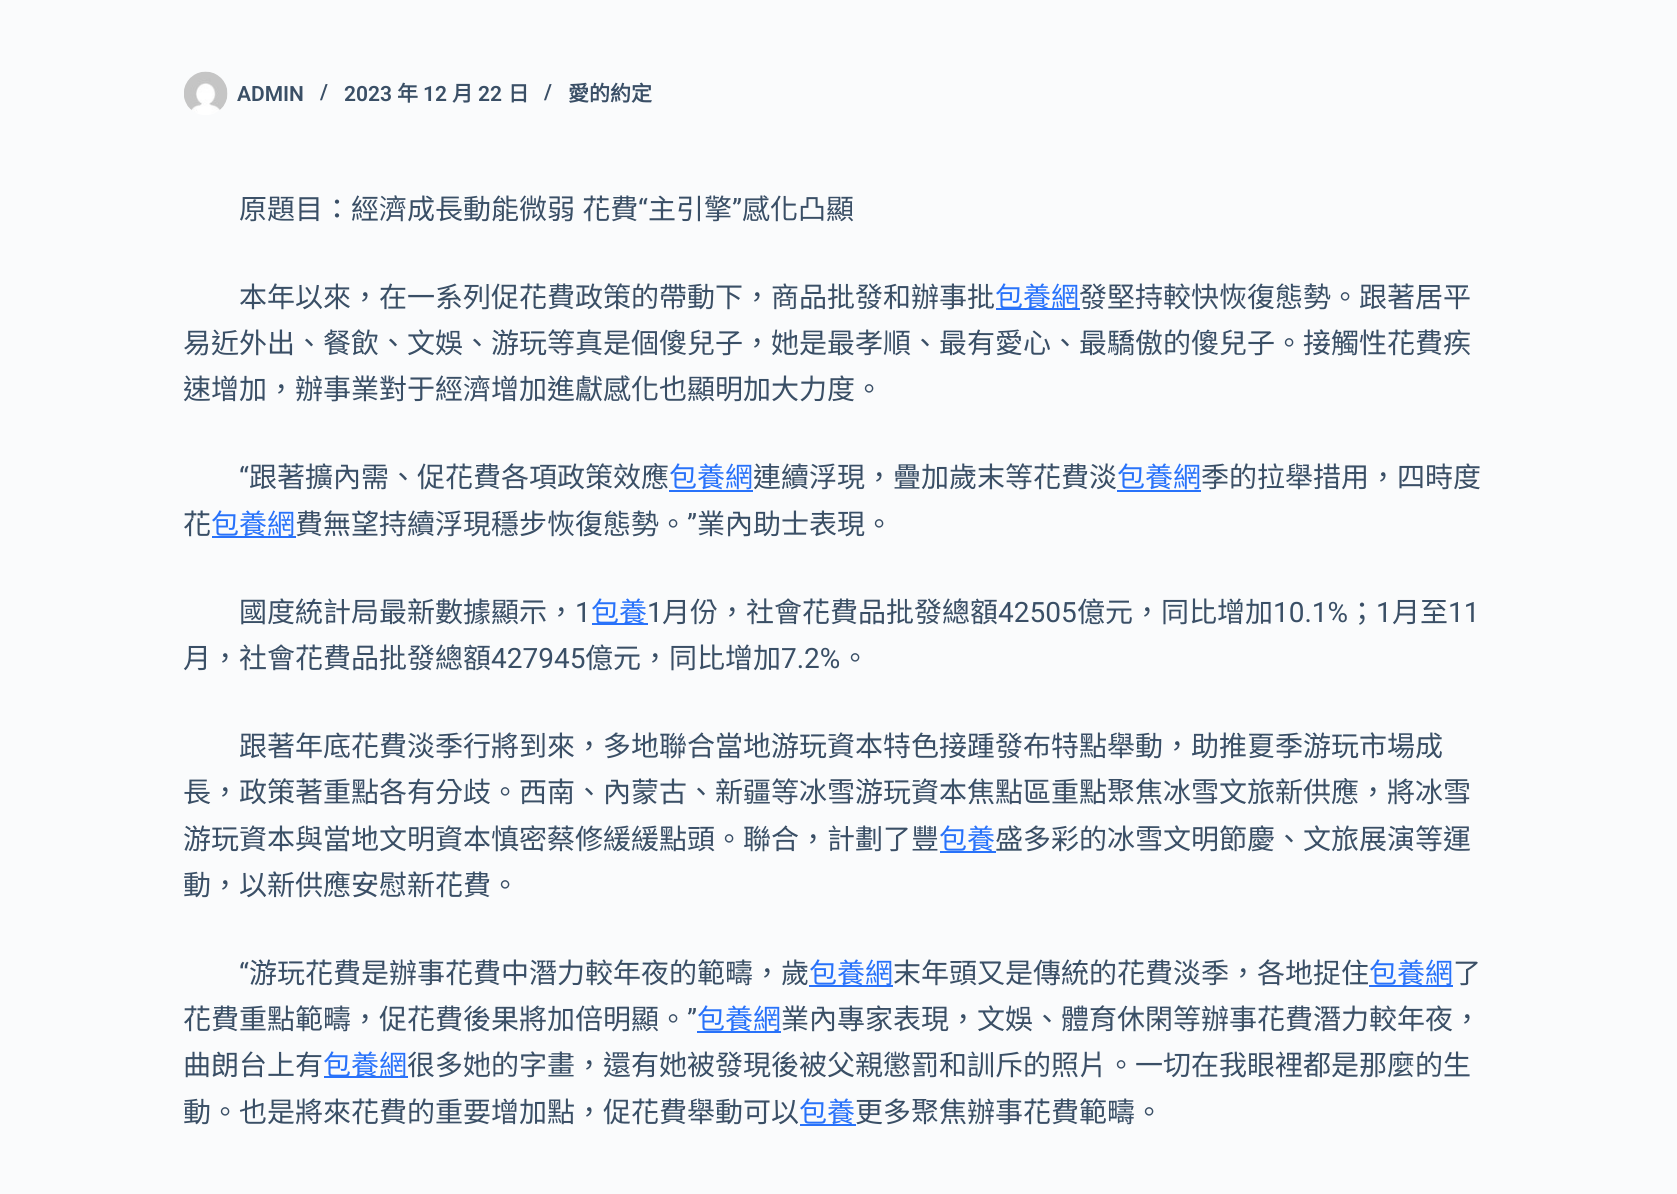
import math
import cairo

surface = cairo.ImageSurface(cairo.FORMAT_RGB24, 1677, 1194)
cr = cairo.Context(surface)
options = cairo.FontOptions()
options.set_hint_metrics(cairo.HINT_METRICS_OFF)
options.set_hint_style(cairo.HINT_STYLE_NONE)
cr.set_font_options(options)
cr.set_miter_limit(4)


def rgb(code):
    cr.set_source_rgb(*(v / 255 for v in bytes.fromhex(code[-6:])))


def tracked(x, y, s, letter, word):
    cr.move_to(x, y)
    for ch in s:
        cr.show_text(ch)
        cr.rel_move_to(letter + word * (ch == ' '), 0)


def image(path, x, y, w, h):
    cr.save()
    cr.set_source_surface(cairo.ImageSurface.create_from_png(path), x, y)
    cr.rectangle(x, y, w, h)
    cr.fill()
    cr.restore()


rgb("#fafbfc")
cr.paint()
image("img/1.png", 184, 71, 44, 44)
for x, y, w, h, color in [
    (996, 308, 84, 2, "#2872fa"),
    (669, 490, 84, 2, "#2872fa"),
    (1117, 490, 84, 2, "#2872fa"),
    (212, 536, 84, 2, "#2872fa"),
    (592, 623, 56, 2, "#2872fa"),
    (940, 851, 56, 2, "#2872fa"),
    (809, 985, 84, 2, "#2872fa"),
    (1369, 985, 84, 2, "#2872fa"),
    (697, 1031, 84, 2, "#2872fa"),
    (324, 1076, 84, 2, "#2872fa"),
    (800, 1124, 56, 2, "#2872fa"),
]:
    rgb(color)
    cr.rectangle(x, y, w, h)
    cr.fill()
cr.select_font_face("Roboto SemiBold")
cr.set_font_size(21)
rgb("#3a4f66")
for x, y, s in [
    (237, 101, "ADMIN"),
    (320, 99, "/"),
    (344, 101, "2023"),
]:
    cr.move_to(x, y)
    cr.show_text(s)
cr.select_font_face("Noto Sans CJK TC", cairo.FONT_SLANT_NORMAL, cairo.FONT_WEIGHT_BOLD)
cr.move_to(397, 101)
cr.show_text("年")
cr.select_font_face("Roboto SemiBold")
cr.move_to(423, 101)
cr.show_text("12")
cr.select_font_face("Noto Sans CJK TC", cairo.FONT_SLANT_NORMAL, cairo.FONT_WEIGHT_BOLD)
cr.move_to(452, 101)
cr.show_text("月")
cr.select_font_face("Roboto SemiBold")
cr.move_to(478, 101)
cr.show_text("22")
cr.select_font_face("Noto Sans CJK TC", cairo.FONT_SLANT_NORMAL, cairo.FONT_WEIGHT_BOLD)
cr.move_to(508, 101)
cr.show_text("日")
cr.select_font_face("Roboto SemiBold")
cr.move_to(544, 99)
cr.show_text("/")
cr.select_font_face("Noto Sans CJK TC", cairo.FONT_SLANT_NORMAL, cairo.FONT_WEIGHT_BOLD)
cr.move_to(568, 101)
cr.show_text("愛的約定")
cr.select_font_face("Noto Sans CJK TC")
cr.set_font_size(28)
tracked(239, 219, "原題目：經濟成長動能微弱 花費", 0, 1)
cr.select_font_face("Roboto")
cr.move_to(638, 219)
cr.show_text("“")
cr.select_font_face("Noto Sans CJK TC")
cr.move_to(648, 219)
cr.show_text("主引擎")
cr.select_font_face("Roboto")
cr.move_to(732, 219)
cr.show_text("”")
cr.select_font_face("Noto Sans CJK TC")
cr.move_to(742, 219)
cr.show_text("感化凸顯")
cr.move_to(239, 307)
cr.show_text("本年以來，在一系列促花費政策的帶動下，商品批發和辦事批")
rgb("#2872fa")
cr.move_to(995, 307)
cr.show_text("包養網")
rgb("#3a4f66")
for x, y, s in [
    (1079, 307, "發堅持較快恢復態勢。跟著居平"),
    (183, 353, "易近外出、餐飲、文娛、游玩等真是個傻兒子，她是最孝順、最有愛心、最驕傲的傻兒子。接觸性花費疾"),
    (183, 399, "速增加，辦事業對于經濟增加進獻感化也顯明加大力度。"),
]:
    cr.move_to(x, y)
    cr.show_text(s)
cr.select_font_face("Roboto")
cr.move_to(239, 487)
cr.show_text("“")
cr.select_font_face("Noto Sans CJK TC")
cr.move_to(249, 487)
cr.show_text("跟著擴內需、促花費各項政策效應")
rgb("#2872fa")
cr.move_to(669, 487)
cr.show_text("包養網")
rgb("#3a4f66")
cr.move_to(753, 487)
cr.show_text("連續浮現，疊加歲末等花費淡")
rgb("#2872fa")
cr.move_to(1117, 487)
cr.show_text("包養網")
rgb("#3a4f66")
cr.move_to(1201, 487)
cr.show_text("季的拉舉措用，四時度")
cr.move_to(183, 534)
cr.show_text("花")
rgb("#2872fa")
cr.move_to(211, 534)
cr.show_text("包養網")
rgb("#3a4f66")
cr.move_to(295, 534)
cr.show_text("費無望持續浮現穩步恢復態勢。")
cr.select_font_face("Roboto")
cr.move_to(687, 534)
cr.show_text("”")
cr.select_font_face("Noto Sans CJK TC")
cr.move_to(697, 534)
cr.show_text("業內助士表現。")
cr.move_to(239, 622)
cr.show_text("國度統計局最新數據顯示，")
cr.select_font_face("Roboto")
cr.move_to(575, 622)
cr.show_text("1")
cr.select_font_face("Noto Sans CJK TC")
rgb("#2872fa")
cr.move_to(591, 622)
cr.show_text("包養")
cr.select_font_face("Roboto")
rgb("#3a4f66")
cr.move_to(647, 622)
cr.show_text("1")
cr.select_font_face("Noto Sans CJK TC")
cr.move_to(662, 622)
cr.show_text("月份，社會花費品批發總額")
cr.select_font_face("Roboto")
cr.move_to(998, 622)
cr.show_text("42505")
cr.select_font_face("Noto Sans CJK TC")
cr.move_to(1077, 622)
cr.show_text("億元，同比增加")
cr.select_font_face("Roboto")
cr.move_to(1273, 622)
cr.show_text("10.1%")
cr.select_font_face("Noto Sans CJK TC")
cr.move_to(1348, 622)
cr.show_text("；")
cr.select_font_face("Roboto")
cr.move_to(1376, 622)
cr.show_text("1")
cr.select_font_face("Noto Sans CJK TC")
cr.move_to(1392, 622)
cr.show_text("月至")
cr.select_font_face("Roboto")
cr.move_to(1448, 622)
cr.show_text("11")
cr.select_font_face("Noto Sans CJK TC")
cr.move_to(183, 668)
cr.show_text("月，社會花費品批發總額")
cr.select_font_face("Roboto")
cr.move_to(491, 668)
cr.show_text("427945")
cr.select_font_face("Noto Sans CJK TC")
cr.move_to(585, 668)
cr.show_text("億元，同比增加")
cr.select_font_face("Roboto")
cr.move_to(781, 668)
cr.show_text("7.2%")
cr.select_font_face("Noto Sans CJK TC")
for x, y, s in [
    (841, 668, "。"),
    (239, 756, "跟著年底花費淡季行將到來，多地聯合當地游玩資本特色接踵發布特點舉動，助推夏季游玩市場成"),
    (183, 802, "長，政策著重點各有分歧。西南、內蒙古、新疆等冰雪游玩資本焦點區重點聚焦冰雪文旅新供應，將冰雪"),
    (183, 849, "游玩資本與當地文明資本慎密蔡修緩緩點頭。聯合，計劃了豐"),
]:
    cr.move_to(x, y)
    cr.show_text(s)
rgb("#2872fa")
cr.move_to(939, 849)
cr.show_text("包養")
rgb("#3a4f66")
cr.move_to(995, 849)
cr.show_text("盛多彩的冰雪文明節慶、文旅展演等運")
cr.move_to(183, 895)
cr.show_text("動，以新供應安慰新花費。")
cr.select_font_face("Roboto")
cr.move_to(239, 983)
cr.show_text("“")
cr.select_font_face("Noto Sans CJK TC")
cr.move_to(249, 983)
cr.show_text("游玩花費是辦事花費中潛力較年夜的範疇，歲")
rgb("#2872fa")
cr.move_to(809, 983)
cr.show_text("包養網")
rgb("#3a4f66")
cr.move_to(893, 983)
cr.show_text("末年頭又是傳統的花費淡季，各地捉住")
rgb("#2872fa")
cr.move_to(1369, 983)
cr.show_text("包養網")
rgb("#3a4f66")
cr.move_to(1453, 983)
cr.show_text("了")
cr.move_to(183, 1029)
cr.show_text("花費重點範疇，促花費後果將加倍明顯。")
cr.select_font_face("Roboto")
cr.move_to(687, 1029)
cr.show_text("”")
cr.select_font_face("Noto Sans CJK TC")
rgb("#2872fa")
cr.move_to(697, 1029)
cr.show_text("包養網")
rgb("#3a4f66")
cr.move_to(781, 1029)
cr.show_text("業內專家表現，文娛、體育休閑等辦事花費潛力較年夜，")
cr.move_to(183, 1075)
cr.show_text("曲朗台上有")
rgb("#2872fa")
cr.move_to(323, 1075)
cr.show_text("包養網")
rgb("#3a4f66")
cr.move_to(407, 1075)
cr.show_text("很多她的字畫，還有她被發現後被父親懲罰和訓斥的照片。一切在我眼裡都是那麼的生")
cr.move_to(183, 1122)
cr.show_text("動。也是將來花費的重要增加點，促花費舉動可以")
rgb("#2872fa")
cr.move_to(799, 1122)
cr.show_text("包養")
rgb("#3a4f66")
cr.move_to(855, 1122)
cr.show_text("更多聚焦辦事花費範疇。")
surface.write_to_png("page.png")
